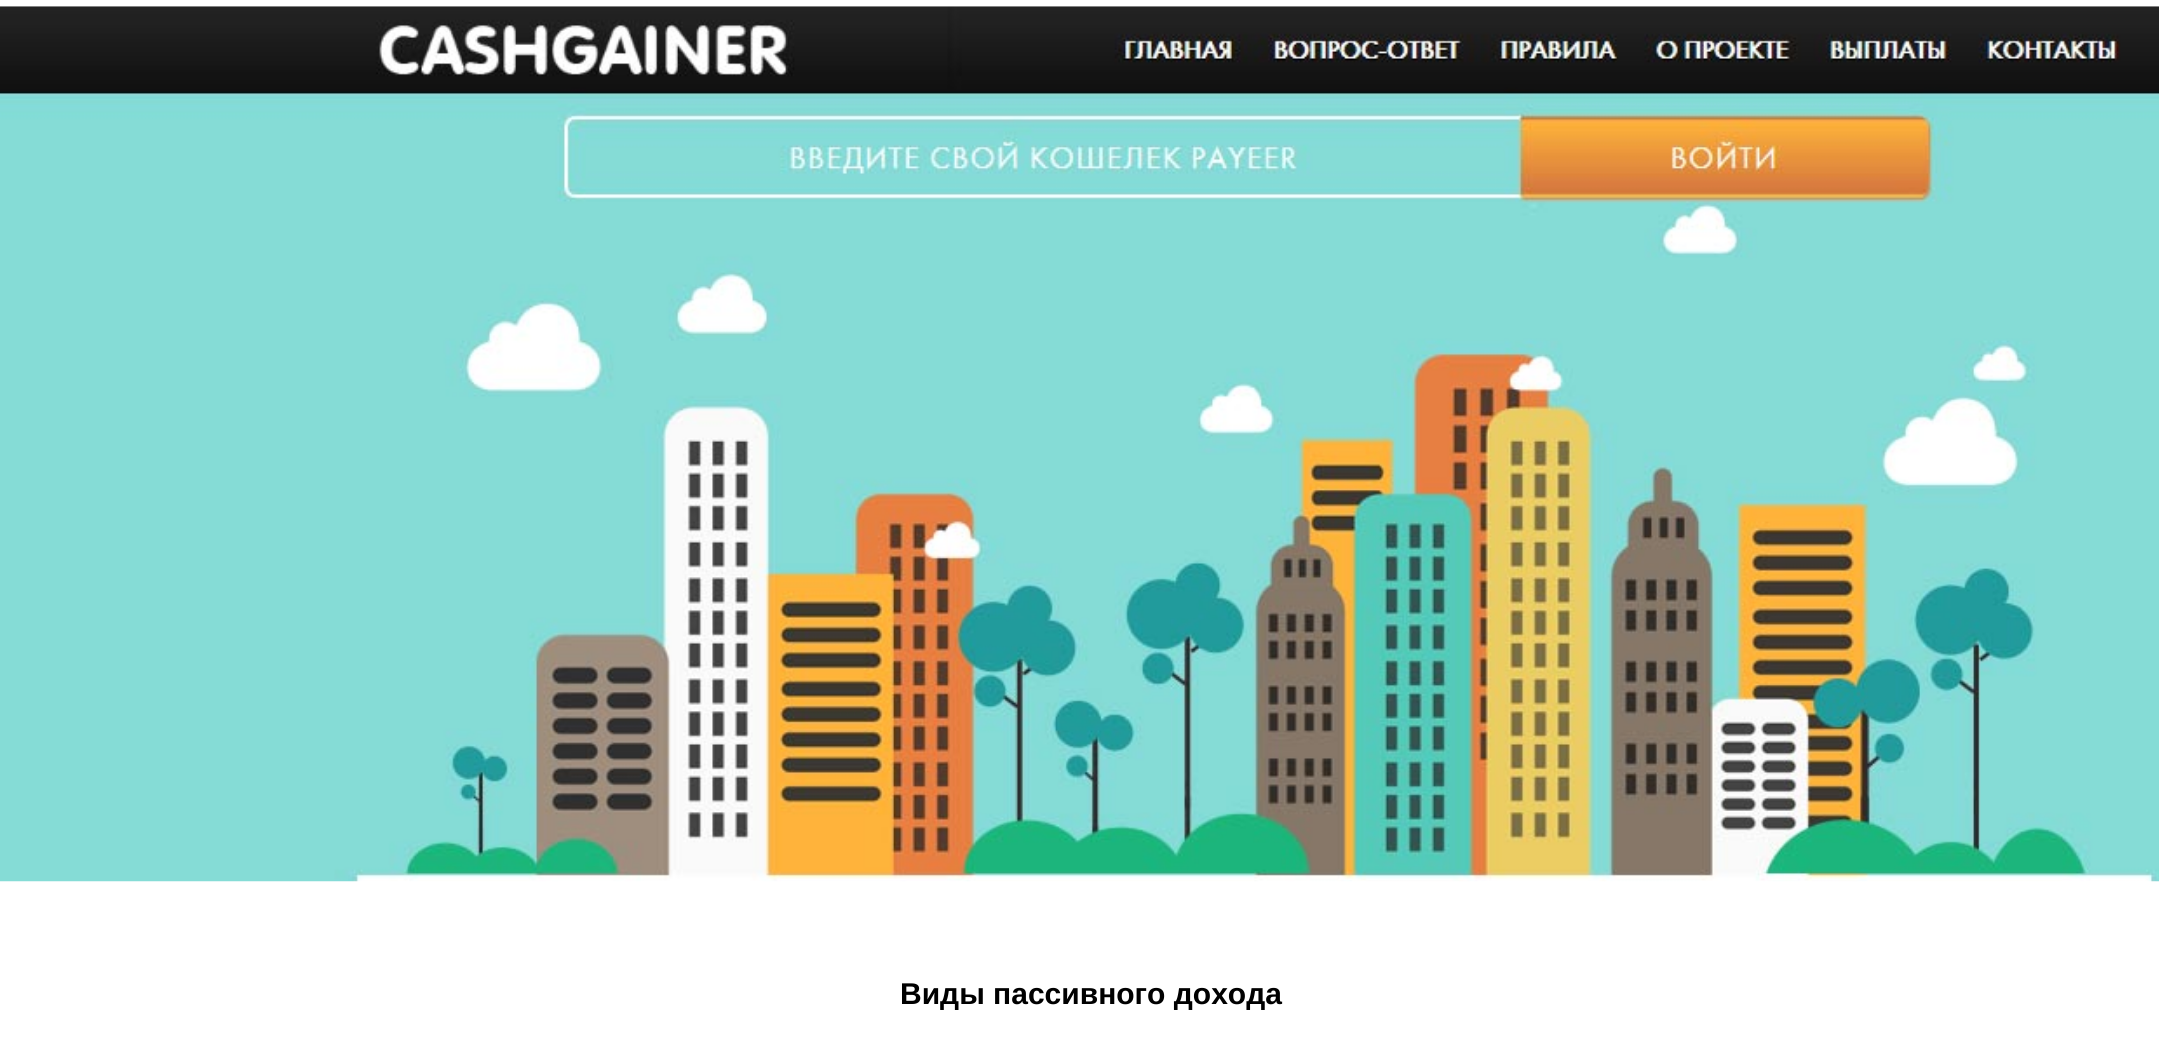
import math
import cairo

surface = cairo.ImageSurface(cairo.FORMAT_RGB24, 2159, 1049)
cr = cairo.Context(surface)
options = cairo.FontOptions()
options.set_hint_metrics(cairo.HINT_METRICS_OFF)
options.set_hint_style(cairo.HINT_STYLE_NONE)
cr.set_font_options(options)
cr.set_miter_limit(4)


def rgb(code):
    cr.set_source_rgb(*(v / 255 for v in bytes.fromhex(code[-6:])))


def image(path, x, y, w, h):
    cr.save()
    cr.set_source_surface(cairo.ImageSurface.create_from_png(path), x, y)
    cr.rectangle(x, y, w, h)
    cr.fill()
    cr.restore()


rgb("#ffffff")
cr.paint()
image("img/1.png", 0, 6, 2159, 876)
cr.select_font_face("Liberation Sans", cairo.FONT_SLANT_NORMAL, cairo.FONT_WEIGHT_BOLD)
cr.set_font_size(30)
rgb("#000000")
cr.move_to(900, 1004)
cr.show_text("Виды пассивного дохода")
surface.write_to_png("page.png")
